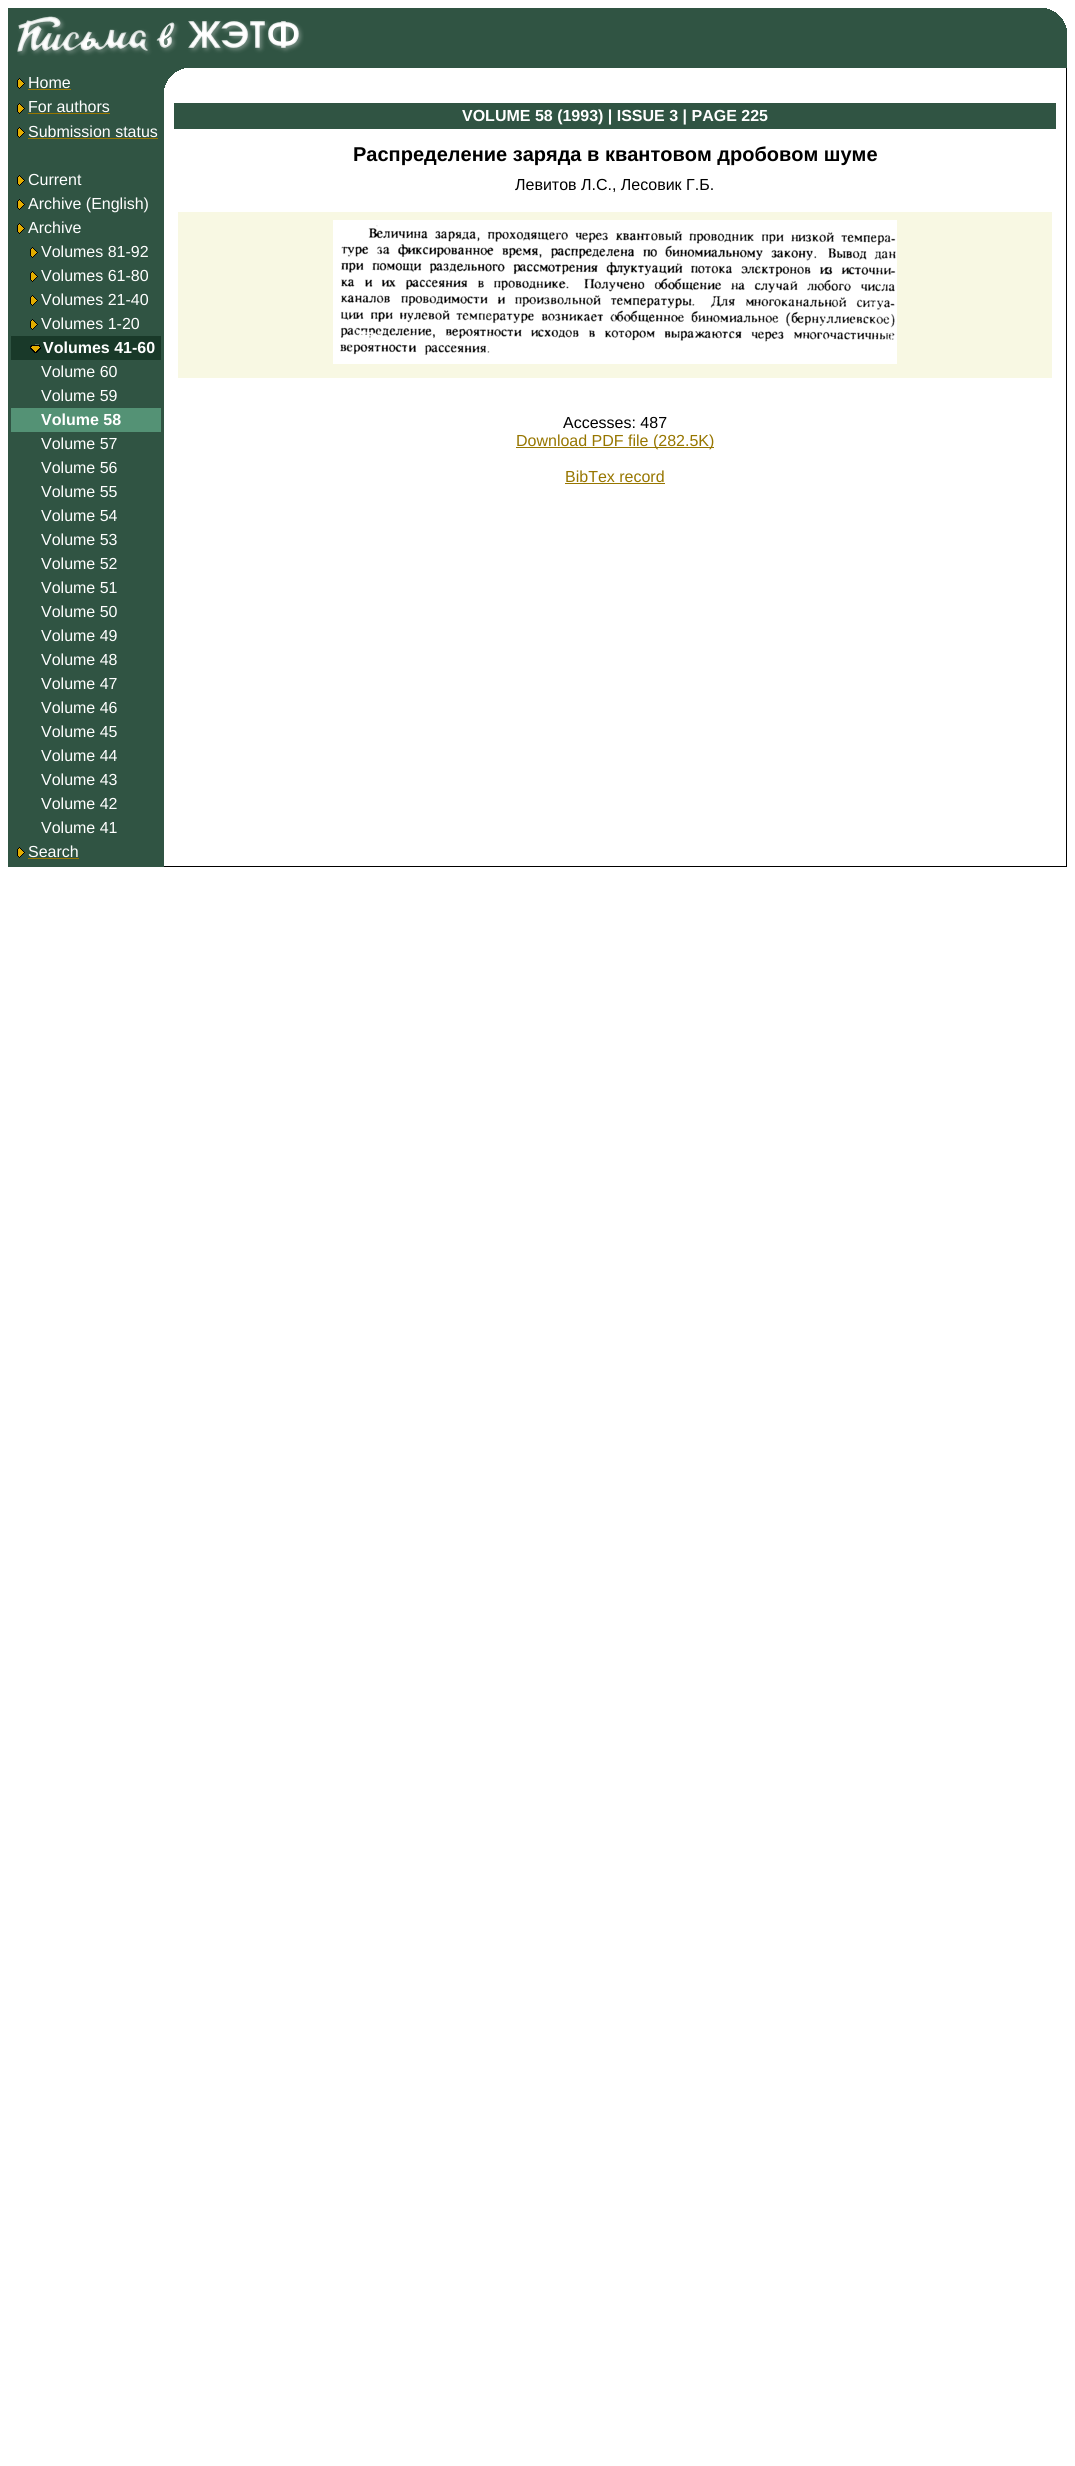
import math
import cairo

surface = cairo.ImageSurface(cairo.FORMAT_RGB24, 1075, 2466)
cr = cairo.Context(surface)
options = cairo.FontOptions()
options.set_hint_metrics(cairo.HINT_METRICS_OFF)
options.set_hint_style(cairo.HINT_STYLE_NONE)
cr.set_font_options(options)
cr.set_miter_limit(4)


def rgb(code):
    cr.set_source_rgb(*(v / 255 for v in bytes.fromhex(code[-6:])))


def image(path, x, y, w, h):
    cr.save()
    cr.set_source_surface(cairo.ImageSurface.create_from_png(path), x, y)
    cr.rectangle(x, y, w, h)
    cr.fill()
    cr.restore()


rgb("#ffffff")
cr.paint()
rgb("#305443")
cr.rectangle(8, 8, 1059, 60)
cr.fill()
image("img/1.png", 1047, 8, 20, 20)
image("img/2.png", 17, 16, 287, 40)
cr.rectangle(8, 68, 156, 799)
cr.fill()
image("img/3.png", 17, 78, 8, 11)
rgb("#977600")
cr.rectangle(28, 89, 43, 1)
cr.fill()
image("img/3.png", 17, 103, 8, 11)
cr.rectangle(28, 113, 82, 1)
cr.fill()
image("img/3.png", 17, 127, 8, 11)
cr.rectangle(28, 138, 130, 1)
cr.fill()
image("img/3.png", 17, 175, 8, 11)
image("img/3.png", 17, 199, 8, 11)
image("img/3.png", 17, 223, 8, 11)
image("img/3.png", 30, 247, 8, 11)
image("img/3.png", 30, 271, 8, 11)
image("img/3.png", 30, 295, 8, 11)
image("img/3.png", 30, 319, 8, 11)
rgb("#193929")
cr.rectangle(11, 336, 150, 24)
cr.fill()
image("img/4.png", 30, 344, 11, 9)
rgb("#549275")
cr.rectangle(11, 408, 150, 24)
cr.fill()
image("img/3.png", 17, 847, 8, 11)
rgb("#977600")
cr.rectangle(28, 858, 51, 1)
cr.fill()
image("img/5.png", 164, 68, 20, 20)
for x, y, w, h, color in [
    (1066, 68, 1, 799, "#000000"),
    (164, 866, 903, 1, "#000000"),
    (174, 103, 882, 26, "#305443"),
    (178, 212, 874, 166, "#f8f8e3"),
]:
    rgb(color)
    cr.rectangle(x, y, w, h)
    cr.fill()
image("img/6.png", 333, 220, 564, 144)
rgb("#977600")
cr.rectangle(516, 447, 198, 1)
cr.fill()
cr.rectangle(565, 483, 100, 1)
cr.fill()
cr.select_font_face("Liberation Sans")
cr.set_font_size(16)
rgb("#ffffff")
for x, y, s in [
    (28, 88, "Home"),
    (28, 112, "For authors"),
    (28, 137, "Submission status"),
    (28, 185, "Current"),
    (28, 209, "Archive (English)"),
    (28, 233, "Archive"),
    (41, 257, "Volumes 81-92"),
    (41, 281, "Volumes 61-80"),
    (41, 305, "Volumes 21-40"),
    (41, 329, "Volumes 1-20"),
]:
    cr.move_to(x, y)
    cr.show_text(s)
cr.select_font_face("Liberation Sans", cairo.FONT_SLANT_NORMAL, cairo.FONT_WEIGHT_BOLD)
cr.move_to(43, 353)
cr.show_text("Volumes 41-60")
cr.select_font_face("Liberation Sans")
cr.move_to(41, 377)
cr.show_text("Volume 60")
cr.move_to(41, 401)
cr.show_text("Volume 59")
cr.select_font_face("Liberation Sans", cairo.FONT_SLANT_NORMAL, cairo.FONT_WEIGHT_BOLD)
cr.move_to(41, 425)
cr.show_text("Volume 58")
cr.select_font_face("Liberation Sans")
for x, y, s in [
    (41, 449, "Volume 57"),
    (41, 473, "Volume 56"),
    (41, 497, "Volume 55"),
    (41, 521, "Volume 54"),
    (41, 545, "Volume 53"),
    (41, 569, "Volume 52"),
    (41, 593, "Volume 51"),
    (41, 617, "Volume 50"),
    (41, 641, "Volume 49"),
    (41, 665, "Volume 48"),
    (41, 689, "Volume 47"),
    (41, 713, "Volume 46"),
    (41, 737, "Volume 45"),
    (41, 761, "Volume 44"),
    (41, 785, "Volume 43"),
    (41, 809, "Volume 42"),
    (41, 833, "Volume 41"),
    (28, 857, "Search"),
]:
    cr.move_to(x, y)
    cr.show_text(s)
cr.select_font_face("Liberation Sans", cairo.FONT_SLANT_NORMAL, cairo.FONT_WEIGHT_BOLD)
cr.move_to(462, 121)
cr.show_text("VOLUME 58 (1993) | ISSUE 3 | PAGE 225")
cr.set_font_size(20)
rgb("#000000")
cr.move_to(353, 161)
cr.show_text("Распределение заряда в квантовом дробовом шуме")
cr.select_font_face("Liberation Sans")
cr.set_font_size(16)
cr.move_to(515, 190)
cr.show_text("Левитов Л.С., Лесовик Г.Б.")
cr.move_to(563, 428)
cr.show_text("Accesses: 487")
rgb("#977600")
cr.move_to(516, 446)
cr.show_text("Download PDF file (282.5K)")
cr.move_to(565, 482)
cr.show_text("BibTex record")
surface.write_to_png("page.png")
